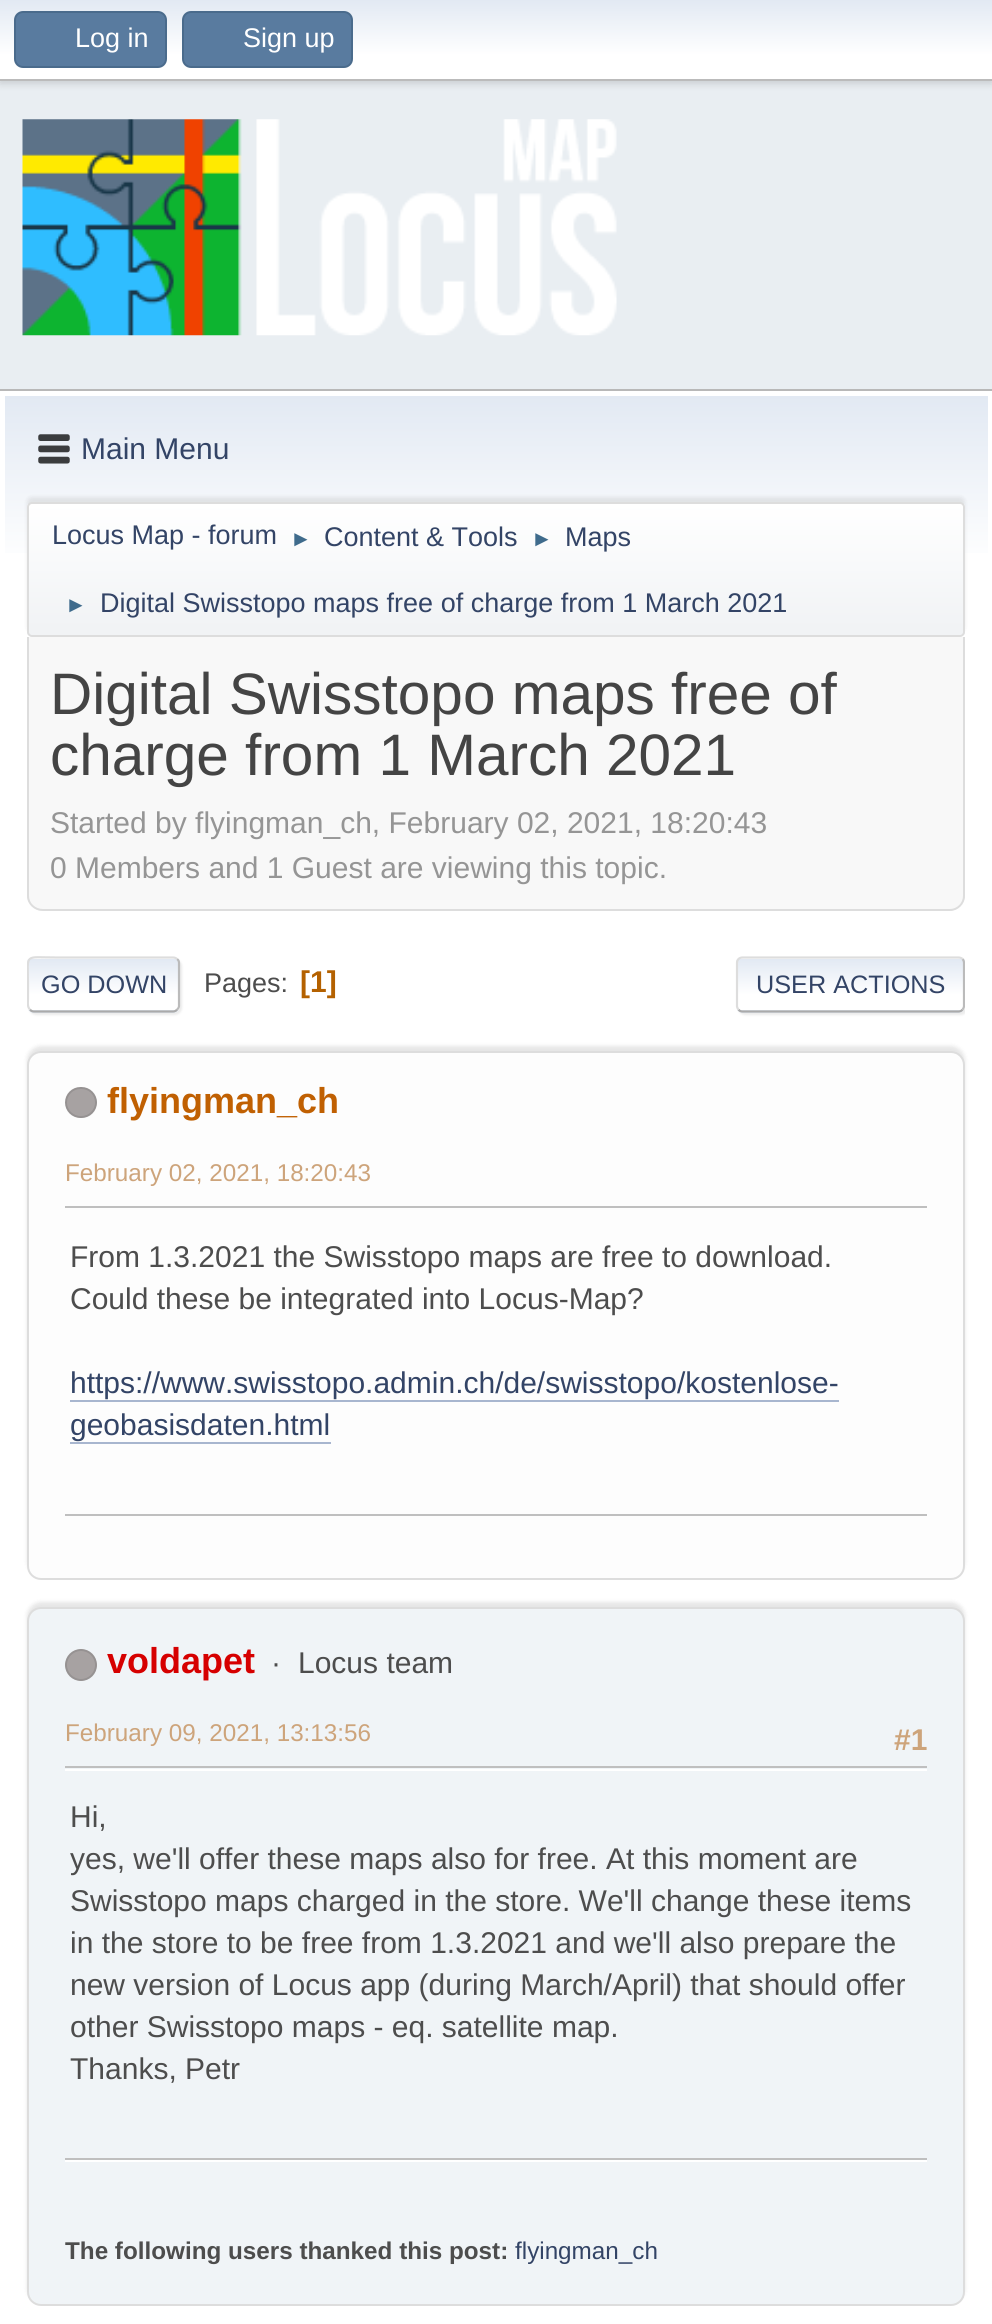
import math
import cairo

surface = cairo.ImageSurface(cairo.FORMAT_RGB24, 992, 2324)
cr = cairo.Context(surface)
options = cairo.FontOptions()
options.set_hint_metrics(cairo.HINT_METRICS_OFF)
options.set_hint_style(cairo.HINT_STYLE_NONE)
cr.set_font_options(options)
cr.set_miter_limit(4)


def rgb(code):
    cr.set_source_rgb(*(v / 255 for v in bytes.fromhex(code[-6:])))


def rrect(x, y, w, h, r):
    cr.new_sub_path()
    for i, (u, v) in enumerate([(x + w - r, y + h - r), (x + r, y + h - r), (x + r, y + r), (x + w - r, y + r)]):
        cr.arc(u, v, r, i * math.pi / 2, (i + 1) * math.pi / 2)
    cr.close_path()


def soft_shadow(x, y, w, h, r, blur, alpha):
    cr.push_group_with_content(cairo.CONTENT_ALPHA)
    cr.set_operator(cairo.OPERATOR_SOURCE)
    for i in range(15, -16, -2):
        e = blur * i / 6
        if min(w, h) + 2 * e > 0:
            cr.set_source_rgba(0, 0, 0, alpha * math.erfc((i - 1) / 8.5) / 2)
            rrect(x - e, y - e, w + 2 * e, h + 2 * e, max(0, min(r + e + blur * .6, min(w, h) / 2 + e)))
            cr.fill()
    cr.mask(cr.pop_group())


def image(path, x, y, w, h):
    cr.save()
    cr.set_source_surface(cairo.ImageSurface.create_from_png(path), x, y)
    cr.rectangle(x, y, w, h)
    cr.fill()
    cr.restore()


rgb("#e9eef2")
cr.paint()
rgb("#000000")
soft_shadow(0, 2, 992, 81, 0, 4.5, 0.16)
gradient = cairo.LinearGradient(496, 0, 496, 79)
gradient.add_color_stop_rgba(0, 0.886, 0.914, 0.953, 1)
gradient.add_color_stop_rgba(0.7, 1, 1, 1, 1)
cr.set_source(gradient)
cr.rectangle(0, 0, 992, 79)
cr.fill()
rgb("#bbbbbb")
cr.rectangle(0, 79, 992, 2)
cr.fill()
rgb("#597b9f")
rrect(15, 12, 151, 55, 8)
cr.fill_preserve()
rgb("#4a6b8c")
cr.stroke()
rgb("#597b9f")
rrect(183, 12, 169, 55, 8)
cr.fill_preserve()
rgb("#4a6b8c")
cr.stroke()
image("img/1.png", 22, 119, 595, 217)
rgb("#ffffff")
cr.rectangle(0, 391, 992, 1933)
cr.fill()
rgb("#b8b8b8")
cr.rectangle(0, 389, 992, 2)
cr.fill()
gradient = cairo.LinearGradient(496, 396, 496, 641)
gradient.add_color_stop_rgba(0, 0.886, 0.914, 0.953, 1)
gradient.add_color_stop_rgba(0.7, 1, 1, 1, 1)
cr.set_source(gradient)
cr.rectangle(5, 396, 983, 157)
cr.fill()
image("img/2.png", 38, 434, 32, 30)
rgb("#000000")
soft_shadow(27, 497, 938, 135, 5, 2, 0.08)
cr.save()
rrect(27, 502, 938, 135, 5)
cr.clip()
gradient = cairo.LinearGradient(496, 504, 496, 635)
gradient.add_color_stop_rgba(0, 1, 1, 1, 1)
gradient.add_color_stop_rgba(0.95, 0.945, 0.953, 0.961, 1)
cr.set_source(gradient)
cr.rectangle(27, 504, 938, 131)
cr.fill()
cr.restore()
rrect(28, 503, 936, 133, 4)
rgb("#dddddd")
cr.stroke()
rgb("#f8f8f8")
cr.new_path()
cr.move_to(27, 637)
cr.line_to(965, 637)
cr.line_to(965, 895)
cr.curve_to(965, 904, 958, 911, 949, 911)
cr.line_to(43, 911)
cr.curve_to(34, 911, 27, 904, 27, 895)
cr.close_path()
cr.fill()
rgb("#dddddd")
cr.set_fill_rule(cairo.FILL_RULE_EVEN_ODD)
cr.new_path()
cr.move_to(27, 637)
cr.line_to(965, 637)
cr.line_to(965, 896)
cr.curve_to(965, 904, 958, 911, 950, 911)
cr.line_to(43, 911)
cr.curve_to(34, 911, 27, 904, 27, 896)
cr.close_path()
cr.move_to(29, 637)
cr.line_to(963, 637)
cr.line_to(963, 896)
cr.curve_to(963, 903, 957, 909, 950, 909)
cr.line_to(43, 909)
cr.curve_to(35, 909, 29, 903, 29, 896)
cr.close_path()
cr.fill()
rgb("#dddddd")
soft_shadow(29, 959, 153, 56, 7, 1, 0.57)
rgb("#ffffff")
rrect(27, 956, 153, 57, 7)
cr.fill()
cr.save()
cr.set_fill_rule(cairo.FILL_RULE_WINDING)
rrect(27, 956, 153, 57, 7)
cr.clip()
gradient = cairo.LinearGradient(104, 959, 104, 1010)
gradient.add_color_stop_rgba(0, 0.886, 0.914, 0.953, 1)
gradient.add_color_stop_rgba(0.7, 1, 1, 1, 1)
cr.set_source(gradient)
cr.rectangle(27, 959, 153, 51)
cr.fill()
gradient = cairo.LinearGradient(104, 1010, 104, 1062)
gradient.add_color_stop_rgba(0, 0.886, 0.914, 0.953, 1)
gradient.add_color_stop_rgba(0.7, 1, 1, 1, 1)
cr.set_source(gradient)
cr.rectangle(27, 1010, 153, 3)
cr.fill()
cr.restore()
cr.new_path()
cr.move_to(177, 959)
cr.curve_to(178.5, 960, 179, 961.5, 179, 963)
cr.line_to(179, 1006)
cr.curve_to(179, 1007, 178.5, 1008.5, 177, 1009.5)
rgb("#bbbbbb")
cr.set_line_width(2.2)
cr.stroke()
cr.new_path()
cr.move_to(177, 1009.5)
cr.curve_to(176, 1011, 174.5, 1011.5, 173, 1011.5)
cr.line_to(34, 1011.5)
cr.curve_to(32.5, 1011.5, 31, 1011, 30, 1009.5)
rgb("#aaaaaa")
cr.stroke()
cr.save()
cr.set_fill_rule(cairo.FILL_RULE_WINDING)
cr.rectangle(27, 945, 938, 79)
cr.clip()
cr.new_path()
cr.move_to(30, 1009.5)
cr.curve_to(27, 1007, 28, 1001.5, 28, 998.5)
cr.line_to(28, 984.5)
cr.curve_to(28, 952.5, 23, 957.5, 57, 957.5)
cr.line_to(173, 957.5)
cr.curve_to(174.5, 957.5, 176, 958, 177, 959)
rgb("#dddddd")
cr.stroke()
cr.restore()
cr.save()
cr.set_fill_rule(cairo.FILL_RULE_WINDING)
cr.rectangle(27, 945, 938, 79)
cr.clip()
rgb("#dddddd")
soft_shadow(738, 959, 230, 56, 7, 1, 0.57)
cr.restore()
rgb("#ffffff")
rrect(736, 956, 229, 57, 7)
cr.fill()
cr.save()
cr.set_fill_rule(cairo.FILL_RULE_WINDING)
rrect(736, 956, 229, 57, 7)
cr.clip()
gradient = cairo.LinearGradient(851, 959, 851, 1010)
gradient.add_color_stop_rgba(0, 0.886, 0.914, 0.953, 1)
gradient.add_color_stop_rgba(0.7, 1, 1, 1, 1)
cr.set_source(gradient)
cr.rectangle(736, 959, 229, 51)
cr.fill()
gradient = cairo.LinearGradient(851, 1010, 851, 1062)
gradient.add_color_stop_rgba(0, 0.886, 0.914, 0.953, 1)
gradient.add_color_stop_rgba(0.7, 1, 1, 1, 1)
cr.set_source(gradient)
cr.rectangle(736, 1010, 229, 3)
cr.fill()
cr.restore()
cr.save()
cr.set_fill_rule(cairo.FILL_RULE_WINDING)
cr.rectangle(27, 945, 938, 79)
cr.clip()
cr.new_path()
cr.move_to(962.5, 959)
cr.curve_to(963.5, 960, 964, 961.5, 964, 963)
cr.line_to(964, 1006)
cr.curve_to(964, 1007, 963.5, 1008.5, 962.5, 1009.5)
rgb("#bbbbbb")
cr.stroke()
cr.restore()
cr.new_path()
cr.move_to(962.5, 1009.5)
cr.curve_to(961.5, 1011, 960, 1011.5, 958.5, 1011.5)
cr.line_to(742.5, 1011.5)
cr.curve_to(741, 1011.5, 739.5, 1011, 738.5, 1009.5)
rgb("#aaaaaa")
cr.stroke()
cr.new_path()
cr.move_to(738.5, 1009.5)
cr.curve_to(737.5, 1008.5, 737, 1007, 737, 1006)
cr.line_to(737, 963)
cr.curve_to(737, 961.5, 737.5, 960, 738.5, 959)
cr.curve_to(739.5, 958, 741, 957.5, 742.5, 957.5)
cr.line_to(958.5, 957.5)
cr.curve_to(960, 957.5, 961.5, 958, 962.5, 959)
rgb("#dddddd")
cr.stroke()
rgb("#000000")
soft_shadow(27, 1046, 938, 529, 14, 2, 0.1)
rgb("#fdfdfd")
rrect(28, 1052, 936, 527, 13)
cr.fill_preserve()
rgb("#dddddd")
cr.set_line_width(2)
cr.stroke()
rgb("#a7a2a2")
rrect(66, 1088, 30, 29, 14.5)
cr.fill_preserve()
rgb("#969292")
cr.stroke()
for x, y, w, h, color in [
    (65, 1206, 862, 2, "#bfbfbf"),
    (70, 1400, 769, 2, "#a8b6cf"),
    (70, 1442, 261, 2, "#a8b6cf"),
    (65, 1514, 862, 2, "#bfbfbf"),
]:
    rgb(color)
    cr.rectangle(x, y, w, h)
    cr.fill()
rgb("#000000")
soft_shadow(27, 1602, 938, 700, 14, 2, 0.1)
rgb("#f0f4f7")
rrect(28, 1608, 936, 697, 13)
cr.fill_preserve()
rgb("#dddddd")
cr.stroke()
rgb("#a7a2a2")
cr.arc(81, 1665, 15, 0, 2 * math.pi)
cr.fill_preserve()
rgb("#969292")
cr.stroke()
for x, y, w, h, color in [
    (65, 1769, 862, 2, "#ffffff"),
    (65, 1766, 862, 2, "#bfbfbf"),
    (65, 2160, 862, 2, "#ffffff"),
    (65, 2158, 862, 2, "#bfbfbf"),
]:
    rgb(color)
    cr.rectangle(x, y, w, h)
    cr.fill()
cr.select_font_face("Liberation Sans")
cr.set_font_size(27)
rgb("#ffffff")
cr.move_to(75, 47)
cr.show_text("Log in")
cr.move_to(243, 47)
cr.show_text("Sign up")
cr.set_font_size(30)
rgb("#334466")
cr.move_to(81, 459)
cr.show_text("Main Menu")
cr.set_font_size(27)
cr.move_to(52, 544)
cr.show_text("Locus Map - forum")
cr.set_font_size(22)
rgb("#3f6b8c")
cr.move_to(290, 546)
cr.show_text("►")
cr.set_font_size(27)
rgb("#334466")
cr.move_to(324, 546)
cr.show_text("Content & Tools")
cr.set_font_size(22)
rgb("#3f6b8c")
cr.move_to(531, 546)
cr.show_text("►")
cr.set_font_size(27)
rgb("#334466")
cr.move_to(565, 546)
cr.show_text("Maps")
cr.set_font_size(22)
rgb("#3f6b8c")
cr.move_to(65, 612)
cr.show_text("►")
cr.set_font_size(27)
rgb("#334466")
cr.move_to(100, 612)
cr.show_text("Digital Swisstopo maps free of charge from 1 March 2021")
cr.set_font_size(58.5)
rgb("#444444")
cr.move_to(50, 714)
cr.show_text("Digital Swisstopo maps free of")
cr.move_to(50, 775)
cr.show_text("charge from 1 March 2021")
cr.set_font_size(30)
rgb("#959595")
cr.move_to(50, 833)
cr.show_text("Started by flyingman_ch, February 02, 2021, 18:20:43")
cr.move_to(50, 878)
cr.show_text("0 Members and 1 Guest are viewing this topic.")
cr.set_font_size(25.25)
rgb("#334466")
cr.move_to(41, 993)
cr.show_text("GO DOWN")
cr.set_font_size(27)
rgb("#4d4d4d")
cr.move_to(204, 992)
cr.show_text("Pages:")
cr.select_font_face("Liberation Sans", cairo.FONT_SLANT_NORMAL, cairo.FONT_WEIGHT_BOLD)
cr.set_font_size(30)
rgb("#b46100")
cr.move_to(300, 992)
cr.show_text("[1]")
cr.select_font_face("Liberation Sans")
cr.set_font_size(25.25)
rgb("#334466")
cr.move_to(756, 993)
cr.show_text("USER ACTIONS")
cr.select_font_face("Liberation Sans", cairo.FONT_SLANT_NORMAL, cairo.FONT_WEIGHT_BOLD)
cr.set_font_size(36)
rgb("#c06002")
cr.move_to(107, 1113)
cr.show_text("flyingman_ch")
cr.select_font_face("Liberation Sans")
cr.set_font_size(24.25)
rgb("#cda47b")
cr.move_to(65, 1181)
cr.show_text("February 02, 2021, 18:20:43")
cr.set_font_size(30)
rgb("#4d4d4d")
cr.move_to(70, 1267)
cr.show_text("From 1.3.2021 the Swisstopo maps are free to download.")
cr.move_to(70, 1309)
cr.show_text("Could these be integrated into Locus-Map?")
rgb("#334466")
cr.move_to(70, 1393)
cr.show_text("https://www.swisstopo.admin.ch/de/swisstopo/kostenlose-")
cr.move_to(70, 1435)
cr.show_text("geobasisdaten.html")
cr.select_font_face("Liberation Sans", cairo.FONT_SLANT_NORMAL, cairo.FONT_WEIGHT_BOLD)
cr.set_font_size(36)
rgb("#d60000")
cr.move_to(107, 1673)
cr.show_text("voldapet")
cr.select_font_face("Liberation Sans")
cr.set_font_size(30)
rgb("#4d4d4d")
cr.move_to(271, 1673)
cr.show_text("·")
cr.move_to(298, 1673)
cr.show_text("Locus team")
cr.set_font_size(24.25)
rgb("#cda47b")
cr.move_to(65, 1741)
cr.show_text("February 09, 2021, 13:13:56")
cr.select_font_face("Liberation Sans", cairo.FONT_SLANT_NORMAL, cairo.FONT_WEIGHT_BOLD)
cr.set_font_size(30)
cr.move_to(894, 1750)
cr.show_text("#1")
cr.select_font_face("Liberation Sans")
rgb("#4d4d4d")
for x, y, s in [
    (70, 1827, "Hi,"),
    (70, 1869, "yes, we'll offer these maps also for free. At this moment are"),
    (70, 1911, "Swisstopo maps charged in the store. We'll change these items"),
    (70, 1953, "in the store to be free from 1.3.2021 and we'll also prepare the"),
    (70, 1995, "new version of Locus app (during March/April) that should offer"),
    (70, 2037, "other Swisstopo maps - eq. satellite map."),
    (70, 2079, "Thanks, Petr"),
]:
    cr.move_to(x, y)
    cr.show_text(s)
cr.select_font_face("Liberation Sans", cairo.FONT_SLANT_NORMAL, cairo.FONT_WEIGHT_BOLD)
cr.set_font_size(24.25)
cr.move_to(65, 2259)
cr.show_text("The following users thanked this post:")
cr.select_font_face("Liberation Sans")
rgb("#334466")
cr.move_to(515, 2259)
cr.show_text("flyingman_ch")
surface.write_to_png("page.png")
